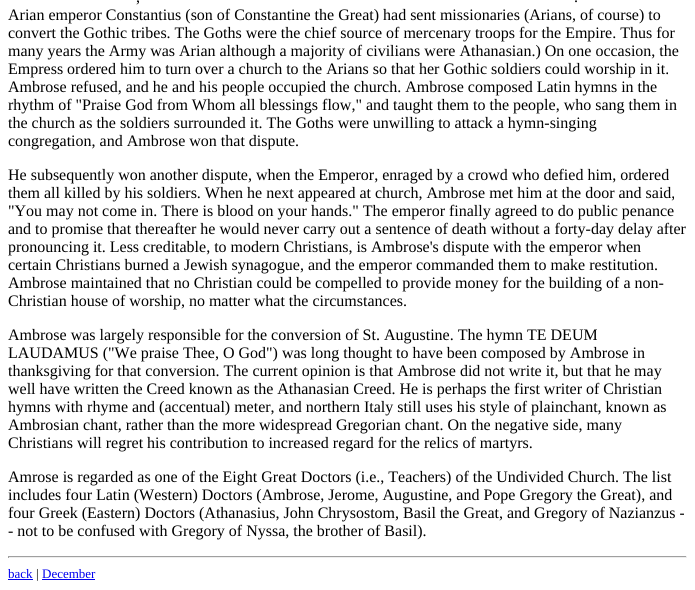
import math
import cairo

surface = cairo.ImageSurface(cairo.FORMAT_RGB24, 695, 590)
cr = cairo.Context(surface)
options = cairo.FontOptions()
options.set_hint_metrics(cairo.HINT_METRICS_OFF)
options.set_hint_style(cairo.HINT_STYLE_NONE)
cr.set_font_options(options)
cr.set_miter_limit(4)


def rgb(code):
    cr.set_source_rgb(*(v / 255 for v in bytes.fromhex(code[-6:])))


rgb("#ffffff")
cr.paint()
for x, y, w, h, color in [
    (8, 556, 679, 1, "#9f9f9f"),
    (686, 556, 1, 2, "#eeeeee"),
    (8, 557, 679, 1, "#eeeeee"),
    (8, 556, 1, 2, "#9f9f9f"),
    (8, 579, 25, 1, "#0000ee"),
    (42, 579, 53, 1, "#0000ee"),
]:
    rgb(color)
    cr.rectangle(x, y, w, h)
    cr.fill()
cr.select_font_face("Liberation Serif")
cr.set_font_size(16)
rgb("#000000")
for x, y, s in [
    (136, 2, ","),
    (574, 2, "."),
    (8, 20, "Arian emperor Constantius (son of Constantine the Great) had sent missionaries (Arians, of course) to"),
    (8, 38, "convert the Gothic tribes. The Goths were the chief source of mercenary troops for the Empire. Thus for"),
    (8, 56, "many years the Army was Arian although a majority of civilians were Athanasian.) On one occasion, the"),
    (8, 74, "Empress ordered him to turn over a church to the Arians so that her Gothic soldiers could worship in it."),
    (8, 92, "Ambrose refused, and he and his people occupied the church. Ambrose composed Latin hymns in the"),
    (8, 110, "rhythm of \"Praise God from Whom all blessings flow,\" and taught them to the people, who sang them in"),
    (8, 128, "the church as the soldiers surrounded it. The Goths were unwilling to attack a hymn-singing"),
    (8, 146, "congregation, and Ambrose won that dispute."),
    (8, 180, "He subsequently won another dispute, when the Emperor, enraged by a crowd who defied him, ordered"),
    (8, 198, "them all killed by his soldiers. When he next appeared at church, Ambrose met him at the door and said,"),
    (8, 216, "\"You may not come in. There is blood on your hands.\" The emperor finally agreed to do public penance"),
    (8, 234, "and to promise that thereafter he would never carry out a sentence of death without a forty-day delay after"),
    (8, 252, "pronouncing it. Less creditable, to modern Christians, is Ambrose's dispute with the emperor when"),
    (8, 270, "certain Christians burned a Jewish synagogue, and the emperor commanded them to make restitution."),
    (8, 288, "Ambrose maintained that no Christian could be compelled to provide money for the building of a non-"),
    (8, 306, "Christian house of worship, no matter what the circumstances."),
    (8, 340, "Ambrose was largely responsible for the conversion of St. Augustine. The hymn TE DEUM"),
    (8, 358, "LAUDAMUS (\"We praise Thee, O God\") was long thought to have been composed by Ambrose in"),
    (8, 376, "thanksgiving for that conversion. The current opinion is that Ambrose did not write it, but that he may"),
    (8, 394, "well have written the Creed known as the Athanasian Creed. He is perhaps the first writer of Christian"),
    (8, 412, "hymns with rhyme and (accentual) meter, and northern Italy still uses his style of plainchant, known as"),
    (8, 430, "Ambrosian chant, rather than the more widespread Gregorian chant. On the negative side, many"),
    (8, 448, "Christians will regret his contribution to increased regard for the relics of martyrs."),
    (8, 482, "Amrose is regarded as one of the Eight Great Doctors (i.e., Teachers) of the Undivided Church. The list"),
    (8, 500, "includes four Latin (Western) Doctors (Ambrose, Jerome, Augustine, and Pope Gregory the Great), and"),
    (8, 518, "four Greek (Eastern) Doctors (Athanasius, John Chrysostom, Basil the Great, and Gregory of Nazianzus -"),
    (8, 536, "- not to be confused with Gregory of Nyssa, the brother of Basil)."),
]:
    cr.move_to(x, y)
    cr.show_text(s)
cr.set_font_size(13)
rgb("#0000ee")
cr.move_to(8, 578)
cr.show_text("back")
rgb("#000000")
cr.move_to(36, 578)
cr.show_text("|")
rgb("#0000ee")
cr.move_to(42, 578)
cr.show_text("December")
surface.write_to_png("page.png")
